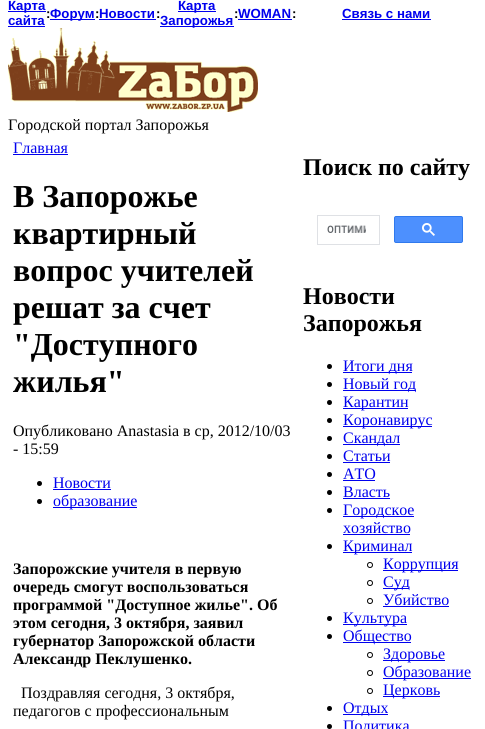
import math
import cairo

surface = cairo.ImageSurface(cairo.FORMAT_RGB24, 485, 729)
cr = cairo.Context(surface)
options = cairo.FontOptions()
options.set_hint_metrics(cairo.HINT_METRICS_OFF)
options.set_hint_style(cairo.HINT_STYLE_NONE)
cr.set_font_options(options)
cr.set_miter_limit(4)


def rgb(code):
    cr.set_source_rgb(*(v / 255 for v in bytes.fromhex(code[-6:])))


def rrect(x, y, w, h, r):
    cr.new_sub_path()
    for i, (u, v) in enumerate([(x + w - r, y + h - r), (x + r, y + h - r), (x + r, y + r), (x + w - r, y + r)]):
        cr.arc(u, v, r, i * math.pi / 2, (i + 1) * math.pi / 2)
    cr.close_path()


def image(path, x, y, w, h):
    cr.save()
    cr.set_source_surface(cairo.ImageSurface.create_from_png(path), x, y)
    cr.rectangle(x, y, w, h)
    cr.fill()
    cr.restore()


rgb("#ffffff")
cr.paint()
for x, y, w, h, color in [
    (8, 11, 38, 1, "#0000ee"),
    (8, 26, 37, 1, "#0000ee"),
    (50, 19, 45, 1, "#0000ee"),
    (99, 19, 57, 1, "#0000ee"),
    (178, 11, 38, 1, "#0000ee"),
    (160, 26, 74, 1, "#0000ee"),
    (238, 19, 54, 1, "#0000ee"),
    (342, 19, 89, 1, "#0000ee"),
]:
    rgb(color)
    cr.rectangle(x, y, w, h)
    cr.fill()
image("img/1.png", 8, 28, 250, 84)
cr.rectangle(13, 154, 55, 1)
cr.fill()
rgb("#000000")
cr.arc(39.5, 483.5, 2.5, 0, 2 * math.pi)
cr.fill()
rgb("#0000ee")
cr.rectangle(53, 489, 58, 1)
cr.fill()
rgb("#000000")
cr.arc(39.5, 501.5, 2.5, 0, 2 * math.pi)
cr.fill()
rgb("#0000ee")
cr.rectangle(53, 507, 84, 1)
cr.fill()
cr.rectangle(317.5, 215.5, 62, 29)
rgb("#dfe1e5")
cr.set_line_width(1)
cr.stroke()
image("img/2.png", 327, 225, 39, 8)
rgb("#4d90fe")
rrect(394.5, 216.5, 68, 26, 1.5)
cr.fill_preserve()
rgb("#3079ed")
cr.stroke()
image("img/3.png", 422, 223, 13, 13)
rgb("#000000")
cr.arc(329.5, 366.5, 2.5, 0, 2 * math.pi)
cr.fill()
rgb("#0000ee")
cr.rectangle(343, 372, 69, 1)
cr.fill()
rgb("#000000")
cr.arc(329.5, 384.5, 2.5, 0, 2 * math.pi)
cr.fill()
rgb("#0000ee")
cr.rectangle(343, 390, 73, 1)
cr.fill()
rgb("#000000")
cr.arc(329.5, 402.5, 2.5, 0, 2 * math.pi)
cr.fill()
rgb("#0000ee")
cr.rectangle(343, 408, 65, 1)
cr.fill()
rgb("#000000")
cr.arc(329.5, 420.5, 2.5, 0, 2 * math.pi)
cr.fill()
rgb("#0000ee")
cr.rectangle(343, 426, 89, 1)
cr.fill()
rgb("#000000")
cr.arc(329.5, 438.5, 2.5, 0, 2 * math.pi)
cr.fill()
rgb("#0000ee")
cr.rectangle(343, 444, 57, 1)
cr.fill()
rgb("#000000")
cr.arc(329.5, 456.5, 2.5, 0, 2 * math.pi)
cr.fill()
rgb("#0000ee")
cr.rectangle(343, 462, 47, 1)
cr.fill()
rgb("#000000")
cr.arc(329.5, 474.5, 2.5, 0, 2 * math.pi)
cr.fill()
rgb("#0000ee")
cr.rectangle(343, 480, 32, 1)
cr.fill()
rgb("#000000")
cr.arc(329.5, 492.5, 2.5, 0, 2 * math.pi)
cr.fill()
rgb("#0000ee")
cr.rectangle(343, 498, 47, 1)
cr.fill()
rgb("#000000")
cr.arc(329.5, 510.5, 2.5, 0, 2 * math.pi)
cr.fill()
rgb("#0000ee")
cr.rectangle(343, 516, 71, 1)
cr.fill()
cr.rectangle(343, 534, 67, 1)
cr.fill()
rgb("#000000")
cr.arc(329.5, 546.5, 2.5, 0, 2 * math.pi)
cr.fill()
rgb("#0000ee")
cr.rectangle(343, 552, 69, 1)
cr.fill()
cr.arc(370, 565, 2.5, 0, 2 * math.pi)
rgb("#000000")
cr.stroke()
rgb("#0000ee")
cr.rectangle(383, 570, 75, 1)
cr.fill()
cr.arc(370, 583, 2.5, 0, 2 * math.pi)
rgb("#000000")
cr.stroke()
rgb("#0000ee")
cr.rectangle(383, 588, 26, 1)
cr.fill()
cr.arc(370, 601, 2.5, 0, 2 * math.pi)
rgb("#000000")
cr.stroke()
rgb("#0000ee")
cr.rectangle(383, 606, 66, 1)
cr.fill()
rgb("#000000")
cr.arc(329.5, 618.5, 2.5, 0, 2 * math.pi)
cr.fill()
rgb("#0000ee")
cr.rectangle(343, 624, 64, 1)
cr.fill()
rgb("#000000")
cr.arc(329.5, 636.5, 2.5, 0, 2 * math.pi)
cr.fill()
rgb("#0000ee")
cr.rectangle(343, 642, 68, 1)
cr.fill()
cr.arc(370, 655, 2.5, 0, 2 * math.pi)
rgb("#000000")
cr.stroke()
rgb("#0000ee")
cr.rectangle(383, 660, 62, 1)
cr.fill()
cr.arc(370, 673, 2.5, 0, 2 * math.pi)
rgb("#000000")
cr.stroke()
rgb("#0000ee")
cr.rectangle(383, 678, 88, 1)
cr.fill()
cr.arc(370, 691, 2.5, 0, 2 * math.pi)
rgb("#000000")
cr.stroke()
rgb("#0000ee")
cr.rectangle(383, 696, 57, 1)
cr.fill()
rgb("#000000")
cr.arc(329.5, 708.5, 2.5, 0, 2 * math.pi)
cr.fill()
rgb("#0000ee")
cr.rectangle(343, 714, 45, 1)
cr.fill()
rgb("#000000")
cr.arc(329.5, 726.5, 2.5, 0, 2 * math.pi)
cr.fill()
cr.select_font_face("Liberation Sans", cairo.FONT_SLANT_NORMAL, cairo.FONT_WEIGHT_BOLD)
cr.set_font_size(13.25)
rgb("#0000ee")
cr.move_to(8, 10)
cr.show_text("Карта")
cr.move_to(8, 25)
cr.show_text("сайта")
rgb("#000000")
cr.move_to(46, 18)
cr.show_text(":")
rgb("#0000ee")
cr.move_to(50, 18)
cr.show_text("Форум")
rgb("#000000")
cr.move_to(95, 18)
cr.show_text(":")
rgb("#0000ee")
cr.move_to(99, 18)
cr.show_text("Новости")
rgb("#000000")
cr.move_to(156, 18)
cr.show_text(":")
rgb("#0000ee")
cr.move_to(178, 10)
cr.show_text("Карта")
cr.move_to(160, 25)
cr.show_text("Запорожья")
rgb("#000000")
cr.move_to(234, 18)
cr.show_text(":")
rgb("#0000ee")
cr.move_to(238, 18)
cr.show_text("WOMAN")
rgb("#000000")
cr.move_to(292, 18)
cr.show_text(":")
rgb("#0000ee")
cr.move_to(342, 18)
cr.show_text("Связь с нами")
cr.select_font_face("Liberation Serif")
cr.set_font_size(16)
rgb("#000000")
cr.move_to(8, 130)
cr.show_text("Городской портал Запорожья")
rgb("#0000ee")
cr.move_to(13, 153)
cr.show_text("Главная")
cr.select_font_face("Liberation Serif", cairo.FONT_SLANT_NORMAL, cairo.FONT_WEIGHT_BOLD)
cr.set_font_size(32)
rgb("#000000")
for x, y, s in [
    (13, 207, "В Запорожье"),
    (13, 244, "квартирный"),
    (13, 281, "вопрос учителей"),
    (13, 318, "решат за счет"),
    (13, 355, "\"Доступного"),
    (13, 392, "жилья\""),
]:
    cr.move_to(x, y)
    cr.show_text(s)
cr.select_font_face("Liberation Serif")
cr.set_font_size(16)
cr.move_to(13, 436)
cr.show_text("Опубликовано Anastasia в ср, 2012/10/03")
cr.move_to(13, 454)
cr.show_text("- 15:59")
rgb("#0000ee")
cr.move_to(53, 488)
cr.show_text("Новости")
cr.move_to(53, 506)
cr.show_text("образование")
cr.select_font_face("Liberation Serif", cairo.FONT_SLANT_NORMAL, cairo.FONT_WEIGHT_BOLD)
rgb("#000000")
for x, y, s in [
    (13, 574, "Запорожские учителя в первую"),
    (13, 592, "очередь смогут воспользоваться"),
    (13, 610, "программой \"Доступное жилье\". Об"),
    (13, 628, "этом сегодня, 3 октября, заявил"),
    (13, 646, "губернатор Запорожской области"),
    (13, 664, "Александр Пеклушенко."),
]:
    cr.move_to(x, y)
    cr.show_text(s)
cr.select_font_face("Liberation Serif")
cr.move_to(21, 698)
cr.show_text("Поздравляя сегодня, 3 октября,")
cr.move_to(13, 716)
cr.show_text("педагогов с профессиональным")
cr.select_font_face("Liberation Serif", cairo.FONT_SLANT_NORMAL, cairo.FONT_WEIGHT_BOLD)
cr.set_font_size(24)
for x, y, s in [
    (303, 175, "Поиск по сайту"),
    (303, 304, "Новости"),
    (303, 331, "Запорожья"),
]:
    cr.move_to(x, y)
    cr.show_text(s)
cr.select_font_face("Liberation Serif")
cr.set_font_size(16)
rgb("#0000ee")
for x, y, s in [
    (343, 371, "Итоги дня"),
    (343, 389, "Новый год"),
    (343, 407, "Карантин"),
    (343, 425, "Коронавирус"),
    (343, 443, "Скандал"),
    (343, 461, "Статьи"),
    (343, 479, "АТО"),
    (343, 497, "Власть"),
    (343, 515, "Городское"),
    (343, 533, "хозяйство"),
    (343, 551, "Криминал"),
    (383, 569, "Коррупция"),
    (383, 587, "Суд"),
    (383, 605, "Убийство"),
    (343, 623, "Культура"),
    (343, 641, "Общество"),
    (383, 659, "Здоровье"),
    (383, 677, "Образование"),
    (383, 695, "Церковь"),
    (343, 713, "Отдых"),
    (343, 731, "Политика"),
]:
    cr.move_to(x, y)
    cr.show_text(s)
surface.write_to_png("page.png")
